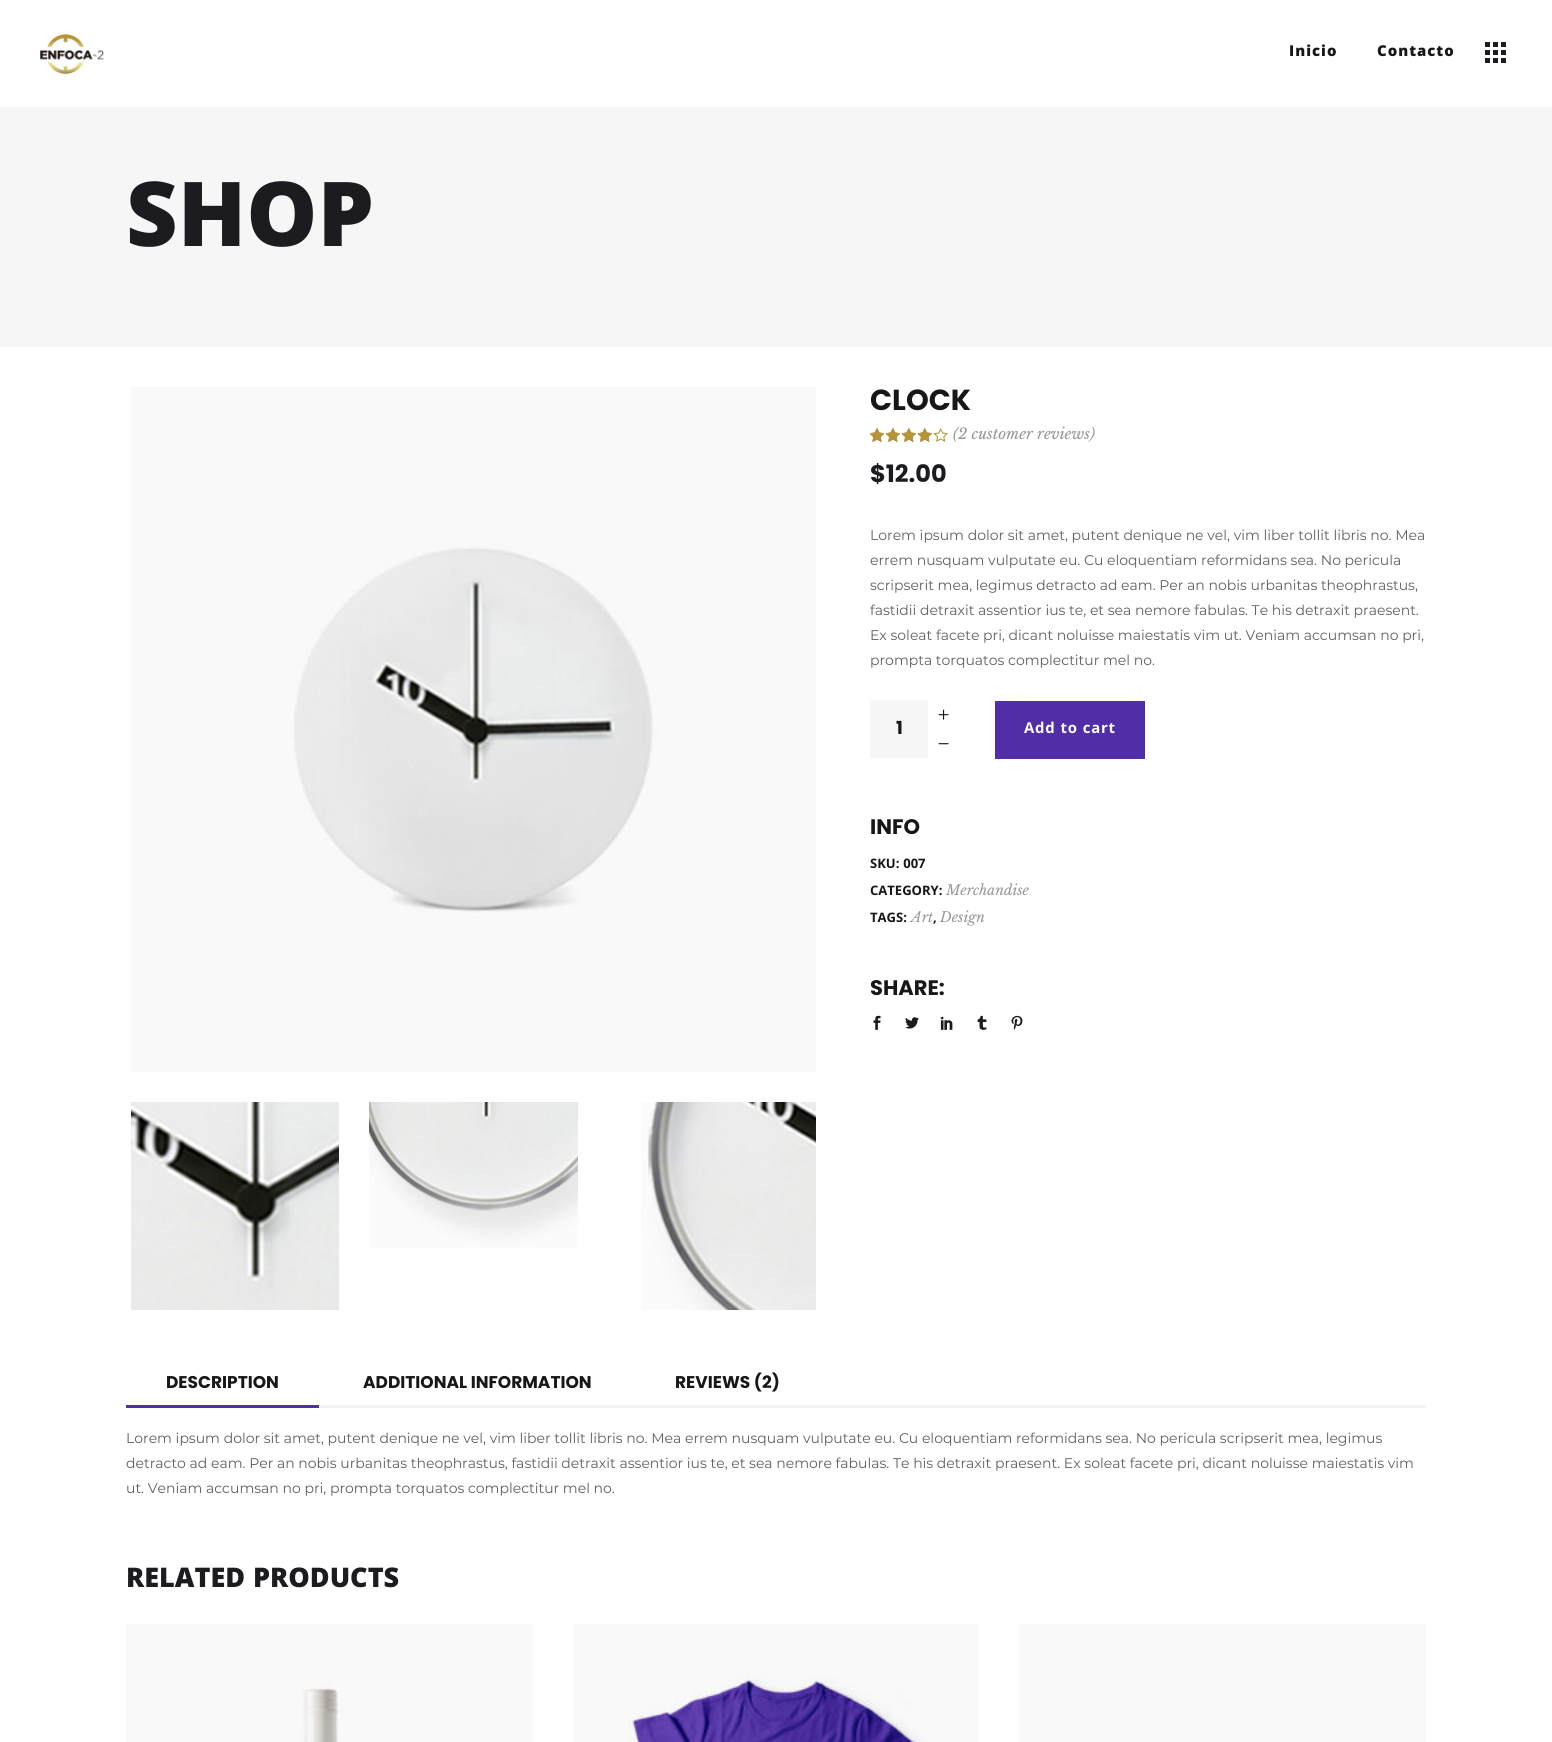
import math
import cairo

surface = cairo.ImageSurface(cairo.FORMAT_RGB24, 1552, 1742)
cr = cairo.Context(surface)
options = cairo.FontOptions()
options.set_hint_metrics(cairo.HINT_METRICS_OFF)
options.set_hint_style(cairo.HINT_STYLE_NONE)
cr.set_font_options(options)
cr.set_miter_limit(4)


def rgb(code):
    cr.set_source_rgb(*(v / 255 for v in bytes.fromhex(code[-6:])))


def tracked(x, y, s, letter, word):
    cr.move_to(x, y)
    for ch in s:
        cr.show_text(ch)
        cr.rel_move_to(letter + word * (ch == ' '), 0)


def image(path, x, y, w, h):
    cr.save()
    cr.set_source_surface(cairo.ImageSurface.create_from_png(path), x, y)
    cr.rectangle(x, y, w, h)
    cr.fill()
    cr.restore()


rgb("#ffffff")
cr.paint()
image("img/1.png", 40, 34, 64, 41)
for x, y, w, h, color in [
    (1485, 42, 5, 5, "#1c1b20"),
    (1493, 42, 5, 5, "#1c1b20"),
    (1501, 42, 5, 5, "#1c1b20"),
    (1485, 50, 5, 5, "#1c1b20"),
    (1493, 50, 5, 5, "#1c1b20"),
    (1501, 50, 5, 5, "#1c1b20"),
    (1485, 58, 5, 5, "#1c1b20"),
    (1493, 58, 5, 5, "#1c1b20"),
    (1501, 58, 5, 5, "#1c1b20"),
    (0, 107, 1552, 240, "#f6f6f6"),
]:
    rgb(color)
    cr.rectangle(x, y, w, h)
    cr.fill()
image("img/2.png", 131, 387, 685, 685)
image("img/3.png", 131, 1102, 208, 208)
image("img/4.png", 369, 1102, 209, 146)
image("img/5.png", 641, 1102, 175, 208)
image("img/6.png", 870, 428, 78, 14)
image("img/7.png", 870, 428, 64, 14)
image("img/8.png", 870, 428, 64, 14)
image("img/9.png", 938, 709, 11, 11)
cr.rectangle(870, 700, 58, 58)
cr.fill()
image("img/10.png", 938, 743, 11, 2)
rgb("#512da8")
cr.rectangle(995, 701, 150, 58)
cr.fill()
image("img/11.png", 873, 1015, 8, 15)
image("img/12.png", 905, 1017, 14, 12)
image("img/13.png", 940, 1016, 13, 14)
image("img/14.png", 977, 1015, 10, 15)
image("img/15.png", 1011, 1015, 12, 15)
rgb("#f3f3f3")
cr.rectangle(319, 1405, 1107, 3)
cr.fill()
rgb("#512da8")
cr.rectangle(126, 1405, 193, 3)
cr.fill()
image("img/16.png", 126, 1624, 407, 118)
image("img/17.png", 573, 1624, 406, 118)
rgb("#f9f9f9")
cr.rectangle(1019, 1624, 407, 118)
cr.fill()
cr.select_font_face("Khula ExtraBold")
cr.set_font_size(16)
rgb("#171717")
tracked(1289, 56, "Inicio", 1, 0)
tracked(1377, 56, "Contacto", 1, 0)
cr.set_font_size(96)
rgb("#1c1b20")
cr.move_to(126, 246)
cr.show_text("SHOP")
cr.select_font_face("Poppins", cairo.FONT_SLANT_NORMAL, cairo.FONT_WEIGHT_BOLD)
cr.set_font_size(29)
rgb("#171717")
cr.move_to(870, 410)
cr.show_text("CLOCK")
cr.select_font_face("Libre Baskerville", cairo.FONT_SLANT_ITALIC)
cr.set_font_size(15)
rgb("#989797")
cr.move_to(953, 439)
cr.show_text("(2 customer reviews)")
cr.select_font_face("Poppins", cairo.FONT_SLANT_NORMAL, cairo.FONT_WEIGHT_BOLD)
cr.set_font_size(24)
rgb("#1c1b20")
cr.move_to(870, 482)
cr.show_text("$12.00")
cr.select_font_face("Montserrat")
cr.set_font_size(14)
rgb("#606060")
for x, y, s in [
    (870, 540, "Lorem ipsum dolor sit amet, putent denique ne vel, vim liber tollit libris no. Mea"),
    (870, 565, "errem nusquam vulputate eu. Cu eloquentiam reformidans sea. No pericula"),
    (870, 590, "scripserit mea, legimus detracto ad eam. Per an nobis urbanitas theophrastus,"),
    (870, 615, "fastidii detraxit assentior ius te, et sea nemore fabulas. Te his detraxit praesent."),
    (870, 640, "Ex soleat facete pri, dicant noluisse maiestatis vim ut. Veniam accumsan no pri,"),
    (870, 665, "prompta torquatos complectitur mel no."),
]:
    cr.move_to(x, y)
    cr.show_text(s)
cr.select_font_face("Poppins", cairo.FONT_SLANT_NORMAL, cairo.FONT_WEIGHT_BOLD)
cr.set_font_size(18)
rgb("#171717")
cr.move_to(896, 734)
cr.show_text("1")
cr.select_font_face("Khula", cairo.FONT_SLANT_NORMAL, cairo.FONT_WEIGHT_BOLD)
cr.set_font_size(16)
rgb("#ffffff")
tracked(1024, 733, "Add to cart", 0.75, 0)
cr.select_font_face("Poppins", cairo.FONT_SLANT_NORMAL, cairo.FONT_WEIGHT_BOLD)
cr.set_font_size(21)
rgb("#171717")
cr.move_to(870, 834)
cr.show_text("INFO")
cr.select_font_face("Khula", cairo.FONT_SLANT_NORMAL, cairo.FONT_WEIGHT_BOLD)
cr.set_font_size(14)
cr.move_to(870, 868)
cr.show_text("SKU: 007")
cr.move_to(870, 895)
cr.show_text("CATEGORY:")
cr.select_font_face("Libre Baskerville", cairo.FONT_SLANT_ITALIC)
rgb("#989797")
cr.move_to(946, 895)
cr.show_text("Merchandise")
cr.select_font_face("Khula", cairo.FONT_SLANT_NORMAL, cairo.FONT_WEIGHT_BOLD)
rgb("#171717")
cr.move_to(870, 922)
cr.show_text("TAGS:")
cr.select_font_face("Libre Baskerville", cairo.FONT_SLANT_ITALIC)
rgb("#989797")
cr.move_to(911, 922)
cr.show_text("Art")
cr.select_font_face("Khula", cairo.FONT_SLANT_NORMAL, cairo.FONT_WEIGHT_BOLD)
rgb("#171717")
cr.move_to(933, 922)
cr.show_text(",")
cr.select_font_face("Libre Baskerville", cairo.FONT_SLANT_ITALIC)
rgb("#989797")
cr.move_to(940, 922)
cr.show_text("Design")
cr.select_font_face("Poppins", cairo.FONT_SLANT_NORMAL, cairo.FONT_WEIGHT_BOLD)
cr.set_font_size(21)
rgb("#171717")
cr.move_to(870, 995)
cr.show_text("SHARE:")
cr.set_font_size(17)
for x, y, s in [
    (166, 1388, "DESCRIPTION"),
    (363, 1388, "ADDITIONAL INFORMATION"),
    (675, 1388, "REVIEWS (2)"),
]:
    cr.move_to(x, y)
    cr.show_text(s)
cr.select_font_face("Montserrat")
cr.set_font_size(14)
rgb("#606060")
for x, y, s in [
    (126, 1443, "Lorem ipsum dolor sit amet, putent denique ne vel, vim liber tollit libris no. Mea errem nusquam vulputate eu. Cu eloquentiam reformidans sea. No pericula scripserit mea, legimus"),
    (126, 1468, "detracto ad eam. Per an nobis urbanitas theophrastus, fastidii detraxit assentior ius te, et sea nemore fabulas. Te his detraxit praesent. Ex soleat facete pri, dicant noluisse maiestatis vim"),
    (126, 1493, "ut. Veniam accumsan no pri, prompta torquatos complectitur mel no."),
]:
    cr.move_to(x, y)
    cr.show_text(s)
cr.select_font_face("Khula ExtraBold")
cr.set_font_size(29)
rgb("#1c1b20")
cr.move_to(126, 1587)
cr.show_text("RELATED PRODUCTS")
surface.write_to_png("page.png")
